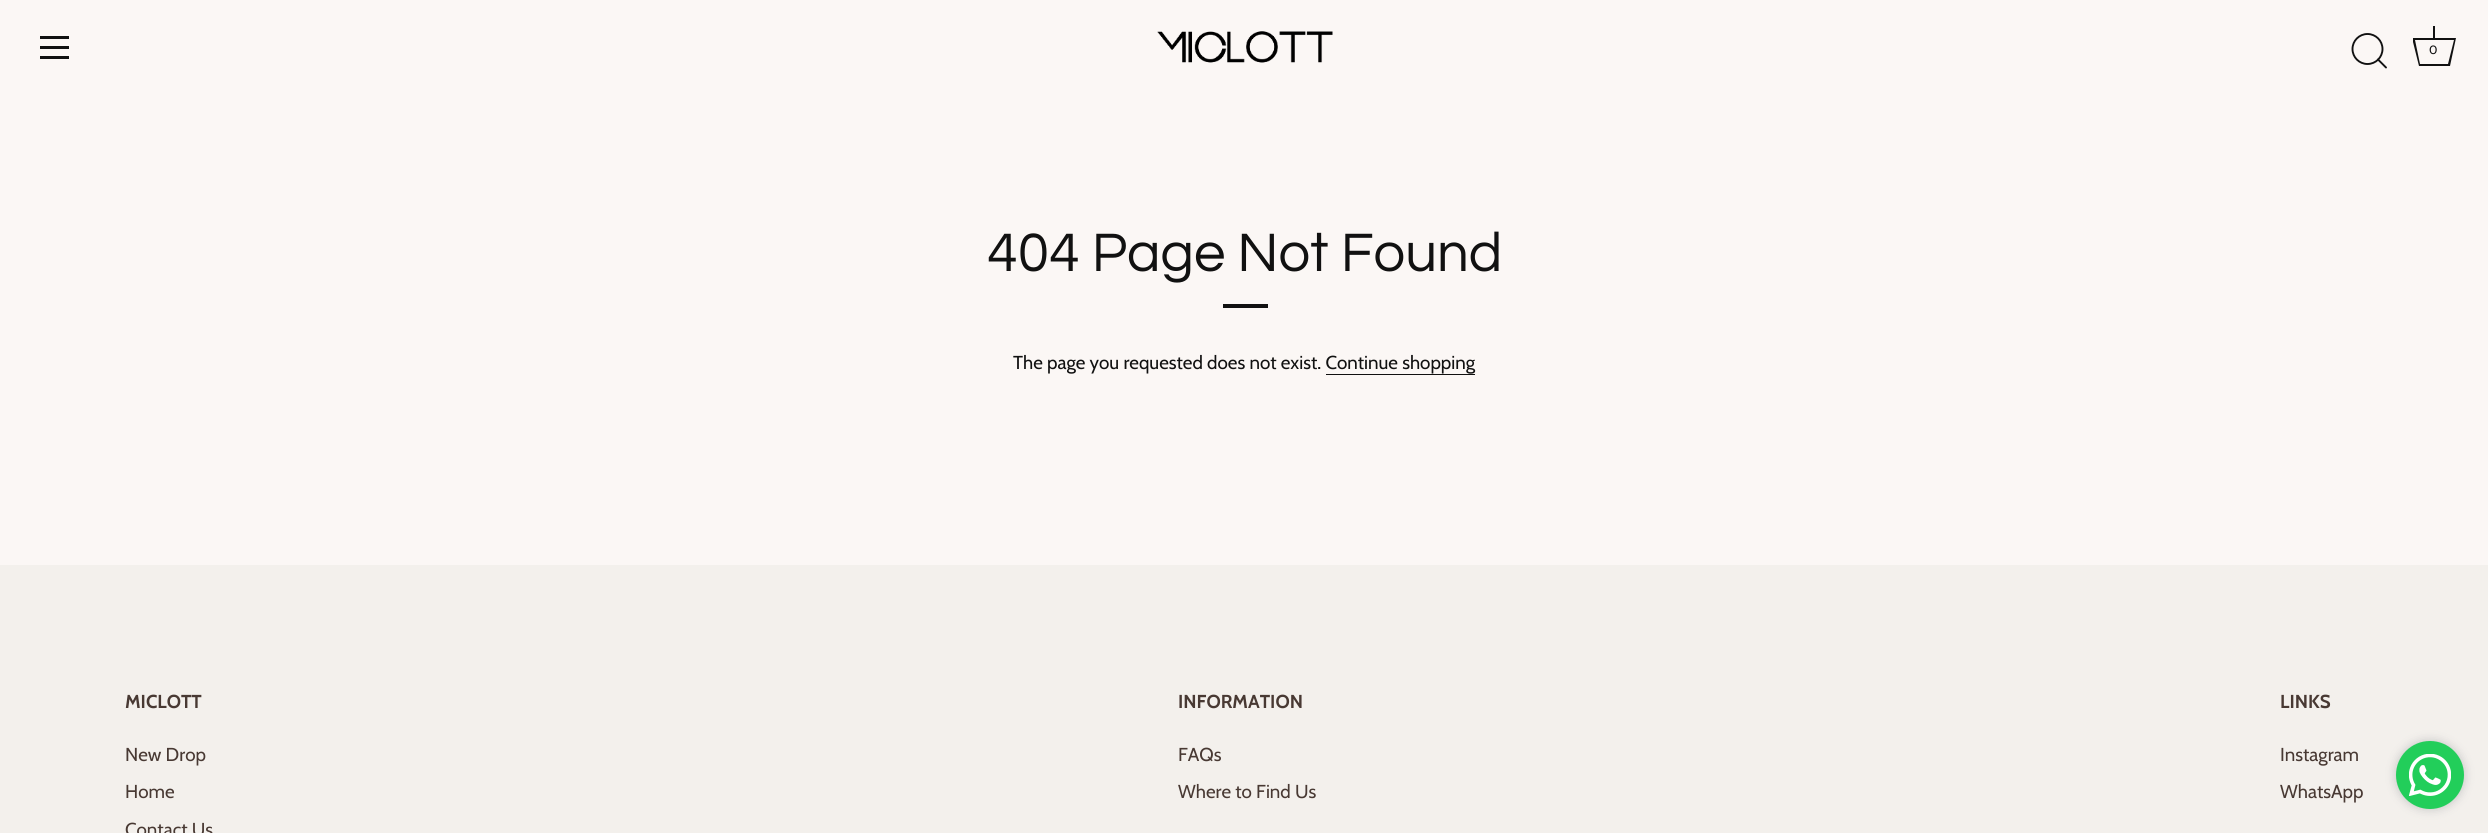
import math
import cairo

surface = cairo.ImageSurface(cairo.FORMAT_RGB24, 2488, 833)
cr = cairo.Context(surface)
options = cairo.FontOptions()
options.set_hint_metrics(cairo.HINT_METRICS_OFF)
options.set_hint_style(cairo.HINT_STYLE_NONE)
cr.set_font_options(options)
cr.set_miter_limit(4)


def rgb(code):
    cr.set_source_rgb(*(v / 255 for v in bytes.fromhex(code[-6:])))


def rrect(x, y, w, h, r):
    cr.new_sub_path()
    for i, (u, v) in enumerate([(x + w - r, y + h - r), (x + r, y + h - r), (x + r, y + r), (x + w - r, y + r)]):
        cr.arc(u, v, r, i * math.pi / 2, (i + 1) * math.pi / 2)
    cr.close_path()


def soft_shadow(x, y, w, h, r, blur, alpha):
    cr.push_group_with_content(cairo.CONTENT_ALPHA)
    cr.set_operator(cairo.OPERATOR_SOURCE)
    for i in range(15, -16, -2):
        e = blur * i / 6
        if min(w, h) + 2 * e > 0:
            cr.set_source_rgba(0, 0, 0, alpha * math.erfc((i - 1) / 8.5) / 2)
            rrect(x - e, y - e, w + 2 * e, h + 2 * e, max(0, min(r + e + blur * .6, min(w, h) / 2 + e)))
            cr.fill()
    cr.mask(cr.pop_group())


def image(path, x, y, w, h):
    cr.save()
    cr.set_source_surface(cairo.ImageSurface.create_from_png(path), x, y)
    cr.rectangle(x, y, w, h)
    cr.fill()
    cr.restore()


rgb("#fbf7f5")
cr.paint()
for x, y, w, h, color in [
    (40, 36, 29, 3, "#111111"),
    (40, 46, 29, 3, "#111111"),
    (40, 56, 29, 3, "#111111"),
]:
    rgb(color)
    cr.rectangle(x, y, w, h)
    cr.fill()
image("img/1.png", 1157, 31, 176, 32)
cr.arc(2367.5, 49, 15, 0, 2 * math.pi)
cr.set_line_width(1.9)
cr.stroke()
cr.new_path()
cr.move_to(2386, 67.5)
cr.line_to(2378, 59.5)
cr.set_line_cap(cairo.LINE_CAP_ROUND)
cr.set_line_join(cairo.LINE_JOIN_ROUND)
cr.stroke()
cr.rectangle(2433, 26, 2, 12)
cr.fill()
cr.save()
cr.rectangle(2413, 24, 43, 44)
cr.clip()
cr.new_path()
cr.move_to(2454, 40)
cr.line_to(2448, 64)
cr.line_to(2420, 64)
cr.line_to(2415, 40)
cr.line_to(2454, 40)
cr.move_to(2456, 38)
cr.line_to(2412, 38)
cr.line_to(2419, 66)
cr.line_to(2450, 66)
cr.close_path()
cr.fill()
cr.restore()
for x, y, w, h, color in [
    (1223, 304, 45, 4, "#111111"),
    (1326, 374, 149, 1, "#111111"),
    (0, 565, 2488, 268, "#f3f0ec"),
]:
    rgb(color)
    cr.rectangle(x, y, w, h)
    cr.fill()
rgb("#c2c2c2")
soft_shadow(2396, 741, 68, 68, 34, 5, 1)
rgb("#22ce5a")
cr.arc(2430, 775, 34, 0, 2 * math.pi)
cr.fill()
image("img/2.png", 2409, 754, 42, 42)
cr.select_font_face("Cabin")
cr.set_font_size(12)
rgb("#111111")
cr.move_to(2429, 54)
cr.show_text("0")
cr.select_font_face("Questrial")
cr.set_font_size(56.25)
cr.move_to(987, 271)
cr.show_text("404 Page Not Found")
cr.select_font_face("Cabin")
cr.set_font_size(18.75)
cr.move_to(1013, 369)
cr.show_text("The page you requested does not exist. Continue shopping")
cr.select_font_face("Cabin", cairo.FONT_SLANT_NORMAL, cairo.FONT_WEIGHT_BOLD)
rgb("#483933")
cr.move_to(125, 708)
cr.show_text("MICLOTT")
cr.select_font_face("Cabin")
for x, y, s in [
    (125, 761, "New Drop"),
    (125, 798, "Home"),
    (125, 836, "Contact Us"),
]:
    cr.move_to(x, y)
    cr.show_text(s)
cr.select_font_face("Cabin", cairo.FONT_SLANT_NORMAL, cairo.FONT_WEIGHT_BOLD)
cr.move_to(1178, 708)
cr.show_text("INFORMATION")
cr.select_font_face("Cabin")
cr.move_to(1178, 761)
cr.show_text("FAQs")
cr.move_to(1178, 798)
cr.show_text("Where to Find Us")
cr.select_font_face("Cabin", cairo.FONT_SLANT_NORMAL, cairo.FONT_WEIGHT_BOLD)
cr.move_to(2280, 708)
cr.show_text("LINKS")
cr.select_font_face("Cabin")
cr.move_to(2280, 761)
cr.show_text("Instagram")
cr.move_to(2280, 798)
cr.show_text("WhatsApp")
surface.write_to_png("page.png")
